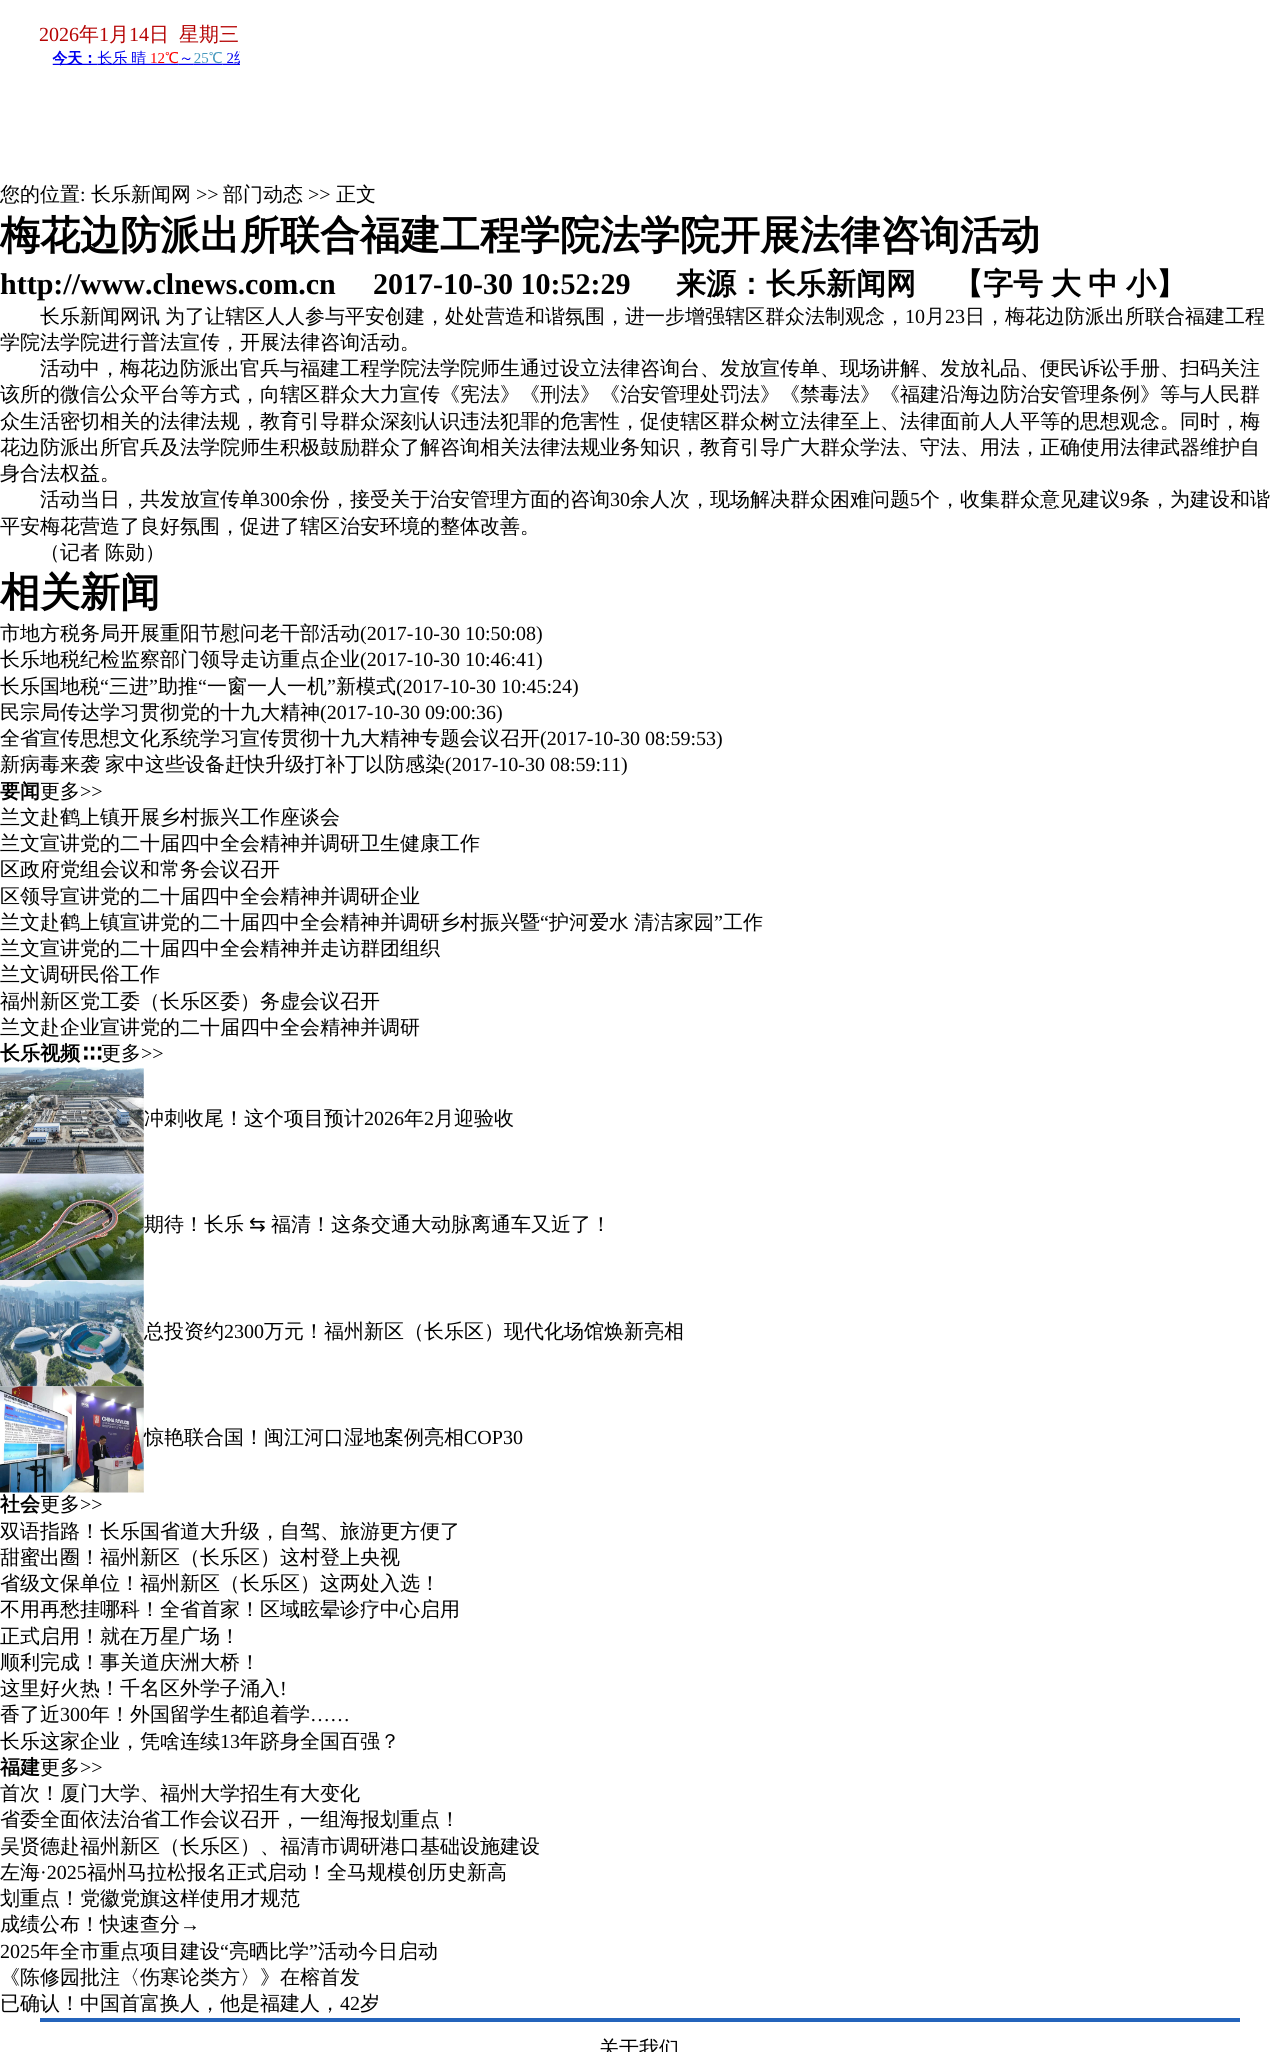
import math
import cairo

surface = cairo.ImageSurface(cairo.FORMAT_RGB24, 1278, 2052)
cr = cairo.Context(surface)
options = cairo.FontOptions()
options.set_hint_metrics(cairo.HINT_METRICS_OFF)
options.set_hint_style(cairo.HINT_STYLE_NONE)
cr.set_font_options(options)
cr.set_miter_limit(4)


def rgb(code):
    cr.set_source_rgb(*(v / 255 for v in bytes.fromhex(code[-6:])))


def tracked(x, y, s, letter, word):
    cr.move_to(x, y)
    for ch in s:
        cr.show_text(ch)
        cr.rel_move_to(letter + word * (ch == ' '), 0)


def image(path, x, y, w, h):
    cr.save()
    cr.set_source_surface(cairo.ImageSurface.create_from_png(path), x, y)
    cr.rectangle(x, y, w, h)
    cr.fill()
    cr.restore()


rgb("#ffffff")
cr.paint()
image("img/1.png", 52, 50, 188, 16)
image("img/2.png", 0, 1067, 144, 107)
image("img/3.png", 0, 1173, 144, 107)
image("img/4.png", 0, 1280, 144, 107)
image("img/5.png", 0, 1386, 144, 107)
rgb("#2464bc")
cr.rectangle(40, 2018, 1200, 4)
cr.fill()
cr.select_font_face("Liberation Serif")
cr.set_font_size(20)
rgb("#b50303")
cr.move_to(39, 41)
cr.show_text("2026")
cr.select_font_face("WenQuanYi Zen Hei Medium")
cr.move_to(79, 41)
cr.show_text("年")
cr.select_font_face("Liberation Serif")
cr.move_to(99, 41)
cr.show_text("1")
cr.select_font_face("WenQuanYi Zen Hei Medium")
cr.move_to(109, 41)
cr.show_text("月")
cr.select_font_face("Liberation Serif")
cr.move_to(129, 41)
cr.show_text("14")
cr.select_font_face("WenQuanYi Zen Hei Medium")
cr.move_to(149, 41)
cr.show_text("日")
cr.move_to(179, 41)
cr.show_text("星期三")
rgb("#000000")
cr.move_to(0, 201)
cr.show_text("您的位置")
cr.select_font_face("Liberation Serif")
cr.move_to(80, 201)
cr.show_text(":")
cr.select_font_face("WenQuanYi Zen Hei Medium")
cr.move_to(91, 201)
cr.show_text("长乐新闻网")
cr.select_font_face("Liberation Serif")
cr.move_to(196, 201)
cr.show_text(">>")
cr.select_font_face("WenQuanYi Zen Hei Medium")
cr.move_to(223, 201)
cr.show_text("部门动态")
cr.select_font_face("Liberation Serif")
cr.move_to(308, 201)
cr.show_text(">>")
cr.select_font_face("WenQuanYi Zen Hei Medium")
cr.move_to(336, 201)
cr.show_text("正文")
cr.select_font_face("WenQuanYi Zen Hei", cairo.FONT_SLANT_NORMAL, cairo.FONT_WEIGHT_BOLD)
cr.set_font_size(40)
cr.move_to(0, 249)
cr.show_text("梅花边防派出所联合福建工程学院法学院开展法律咨询活动")
cr.select_font_face("Liberation Serif", cairo.FONT_SLANT_NORMAL, cairo.FONT_WEIGHT_BOLD)
cr.set_font_size(30)
cr.move_to(0, 294)
cr.show_text("http://www.clnews.com.cn")
cr.move_to(373, 294)
cr.show_text("2017-10-30 10:52:29")
cr.select_font_face("WenQuanYi Zen Hei", cairo.FONT_SLANT_NORMAL, cairo.FONT_WEIGHT_BOLD)
for x, y, s in [
    (676, 294, "来源：长乐新闻网"),
    (953, 294, "【字号"),
    (1051, 294, "大"),
    (1088, 294, "中"),
    (1126, 294, "小】"),
]:
    cr.move_to(x, y)
    cr.show_text(s)
cr.select_font_face("WenQuanYi Zen Hei Medium")
cr.set_font_size(20)
tracked(40, 323, "长乐新闻网讯 为了让辖区人人参与平安创建，处处营造和谐氛围，进一步增强辖区群众法制观念，", 0, -1)
cr.select_font_face("Liberation Serif")
cr.move_to(905, 323)
cr.show_text("10")
cr.select_font_face("WenQuanYi Zen Hei Medium")
cr.move_to(925, 323)
cr.show_text("月")
cr.select_font_face("Liberation Serif")
cr.move_to(945, 323)
cr.show_text("23")
cr.select_font_face("WenQuanYi Zen Hei Medium")
for x, y, s in [
    (965, 323, "日，梅花边防派出所联合福建工程"),
    (0, 349, "学院法学院进行普法宣传，开展法律咨询活动。"),
    (40, 375, "活动中，梅花边防派出官兵与福建工程学院法学院师生通过设立法律咨询台、发放宣传单、现场讲解、发放礼品、便民诉讼手册、扫码关注"),
    (0, 401, "该所的微信公众平台等方式，向辖区群众大力宣传《宪法》《刑法》《治安管理处罚法》《禁毒法》《福建沿海边防治安管理条例》等与人民群"),
    (0, 428, "众生活密切相关的法律法规，教育引导群众深刻认识违法犯罪的危害性，促使辖区群众树立法律至上、法律面前人人平等的思想观念。同时，梅"),
    (0, 454, "花边防派出所官兵及法学院师生积极鼓励群众了解咨询相关法律法规业务知识，教育引导广大群众学法、守法、用法，正确使用法律武器维护自"),
    (0, 480, "身合法权益。"),
    (40, 506, "活动当日，共发放宣传单"),
]:
    cr.move_to(x, y)
    cr.show_text(s)
cr.select_font_face("Liberation Serif")
cr.move_to(260, 506)
cr.show_text("300")
cr.select_font_face("WenQuanYi Zen Hei Medium")
cr.move_to(290, 506)
cr.show_text("余份，接受关于治安管理方面的咨询")
cr.select_font_face("Liberation Serif")
cr.move_to(610, 506)
cr.show_text("30")
cr.select_font_face("WenQuanYi Zen Hei Medium")
cr.move_to(630, 506)
cr.show_text("余人次，现场解决群众困难问题")
cr.select_font_face("Liberation Serif")
cr.move_to(910, 506)
cr.show_text("5")
cr.select_font_face("WenQuanYi Zen Hei Medium")
cr.move_to(920, 506)
cr.show_text("个，收集群众意见建议")
cr.select_font_face("Liberation Serif")
cr.move_to(1120, 506)
cr.show_text("9")
cr.select_font_face("WenQuanYi Zen Hei Medium")
cr.move_to(1130, 506)
cr.show_text("条，为建设和谐")
cr.move_to(0, 533)
cr.show_text("平安梅花营造了良好氛围，促进了辖区治安环境的整体改善。")
tracked(40, 559, "（记者 陈勋）", 0, -1)
cr.select_font_face("WenQuanYi Zen Hei", cairo.FONT_SLANT_NORMAL, cairo.FONT_WEIGHT_BOLD)
cr.set_font_size(40)
cr.move_to(0, 606)
cr.show_text("相关新闻")
cr.select_font_face("WenQuanYi Zen Hei Medium")
cr.set_font_size(20)
cr.move_to(0, 640)
cr.show_text("市地方税务局开展重阳节慰问老干部活动")
cr.select_font_face("Liberation Serif")
cr.move_to(360, 640)
cr.show_text("(2017-10-30 10:50:08)")
cr.select_font_face("WenQuanYi Zen Hei Medium")
cr.move_to(0, 666)
cr.show_text("长乐地税纪检监察部门领导走访重点企业")
cr.select_font_face("Liberation Serif")
cr.move_to(360, 666)
cr.show_text("(2017-10-30 10:46:41)")
cr.select_font_face("WenQuanYi Zen Hei Medium")
cr.move_to(0, 693)
cr.show_text("长乐国地税")
cr.select_font_face("Liberation Serif")
cr.move_to(100, 693)
cr.show_text("“")
cr.select_font_face("WenQuanYi Zen Hei Medium")
cr.move_to(109, 693)
cr.show_text("三进")
cr.select_font_face("Liberation Serif")
cr.move_to(149, 693)
cr.show_text("”")
cr.select_font_face("WenQuanYi Zen Hei Medium")
cr.move_to(158, 693)
cr.show_text("助推")
cr.select_font_face("Liberation Serif")
cr.move_to(198, 693)
cr.show_text("“")
cr.select_font_face("WenQuanYi Zen Hei Medium")
cr.move_to(207, 693)
cr.show_text("一窗一人一机")
cr.select_font_face("Liberation Serif")
cr.move_to(327, 693)
cr.show_text("”")
cr.select_font_face("WenQuanYi Zen Hei Medium")
cr.move_to(336, 693)
cr.show_text("新模式")
cr.select_font_face("Liberation Serif")
cr.move_to(396, 693)
cr.show_text("(2017-10-30 10:45:24)")
cr.select_font_face("WenQuanYi Zen Hei Medium")
cr.move_to(0, 719)
cr.show_text("民宗局传达学习贯彻党的十九大精神")
cr.select_font_face("Liberation Serif")
cr.move_to(320, 719)
cr.show_text("(2017-10-30 09:00:36)")
cr.select_font_face("WenQuanYi Zen Hei Medium")
cr.move_to(0, 745)
cr.show_text("全省宣传思想文化系统学习宣传贯彻十九大精神专题会议召开")
cr.select_font_face("Liberation Serif")
cr.move_to(540, 745)
cr.show_text("(2017-10-30 08:59:53)")
cr.select_font_face("WenQuanYi Zen Hei Medium")
tracked(0, 771, "新病毒来袭 家中这些设备赶快升级打补丁以防感染", 0, -1)
cr.select_font_face("Liberation Serif")
cr.move_to(445, 771)
cr.show_text("(2017-10-30 08:59:11)")
cr.select_font_face("WenQuanYi Zen Hei", cairo.FONT_SLANT_NORMAL, cairo.FONT_WEIGHT_BOLD)
cr.move_to(0, 798)
cr.show_text("要闻")
cr.select_font_face("WenQuanYi Zen Hei Medium")
cr.move_to(40, 798)
cr.show_text("更多")
cr.select_font_face("Liberation Serif")
cr.move_to(80, 798)
cr.show_text(">>")
cr.select_font_face("WenQuanYi Zen Hei Medium")
for x, y, s in [
    (0, 824, "兰文赴鹤上镇开展乡村振兴工作座谈会"),
    (0, 850, "兰文宣讲党的二十届四中全会精神并调研卫生健康工作"),
    (0, 876, "区政府党组会议和常务会议召开"),
    (0, 903, "区领导宣讲党的二十届四中全会精神并调研企业"),
    (0, 929, "兰文赴鹤上镇宣讲党的二十届四中全会精神并调研乡村振兴暨"),
]:
    cr.move_to(x, y)
    cr.show_text(s)
cr.select_font_face("Liberation Serif")
cr.move_to(540, 929)
cr.show_text("“")
cr.select_font_face("WenQuanYi Zen Hei Medium")
tracked(549, 929, "护河爱水 清洁家园", 0, -1)
cr.select_font_face("Liberation Serif")
cr.move_to(714, 929)
cr.show_text("”")
cr.select_font_face("WenQuanYi Zen Hei Medium")
for x, y, s in [
    (723, 929, "工作"),
    (0, 955, "兰文宣讲党的二十届四中全会精神并走访群团组织"),
    (0, 981, "兰文调研民俗工作"),
    (0, 1008, "福州新区党工委（长乐区委）务虚会议召开"),
    (0, 1034, "兰文赴企业宣讲党的二十届四中全会精神并调研"),
]:
    cr.move_to(x, y)
    cr.show_text(s)
cr.select_font_face("WenQuanYi Zen Hei", cairo.FONT_SLANT_NORMAL, cairo.FONT_WEIGHT_BOLD)
cr.move_to(0, 1060)
cr.show_text("长乐视频∶∶∶")
cr.select_font_face("WenQuanYi Zen Hei Medium")
cr.move_to(101, 1060)
cr.show_text("更多")
cr.select_font_face("Liberation Serif")
cr.move_to(141, 1060)
cr.show_text(">>")
cr.select_font_face("WenQuanYi Zen Hei Medium")
cr.move_to(144, 1125)
cr.show_text("冲刺收尾！这个项目预计")
cr.select_font_face("Liberation Serif")
cr.move_to(364, 1125)
cr.show_text("2026")
cr.select_font_face("WenQuanYi Zen Hei Medium")
cr.move_to(404, 1125)
cr.show_text("年")
cr.select_font_face("Liberation Serif")
cr.move_to(424, 1125)
cr.show_text("2")
cr.select_font_face("WenQuanYi Zen Hei Medium")
cr.move_to(434, 1125)
cr.show_text("月迎验收")
cr.move_to(144, 1231)
cr.show_text("期待！长乐")
cr.select_font_face("DejaVu Sans")
cr.move_to(249, 1231)
cr.show_text("⇆")
cr.select_font_face("WenQuanYi Zen Hei Medium")
cr.move_to(271, 1231)
cr.show_text("福清！这条交通大动脉离通车又近了！")
cr.move_to(144, 1338)
cr.show_text("总投资约")
cr.select_font_face("Liberation Serif")
cr.move_to(224, 1338)
cr.show_text("2300")
cr.select_font_face("WenQuanYi Zen Hei Medium")
cr.move_to(264, 1338)
cr.show_text("万元！福州新区（长乐区）现代化场馆焕新亮相")
cr.move_to(144, 1444)
cr.show_text("惊艳联合国！闽江河口湿地案例亮相")
cr.select_font_face("Liberation Serif")
cr.move_to(464, 1444)
cr.show_text("COP30")
cr.select_font_face("WenQuanYi Zen Hei", cairo.FONT_SLANT_NORMAL, cairo.FONT_WEIGHT_BOLD)
cr.move_to(0, 1511)
cr.show_text("社会")
cr.select_font_face("WenQuanYi Zen Hei Medium")
cr.move_to(40, 1511)
cr.show_text("更多")
cr.select_font_face("Liberation Serif")
cr.move_to(80, 1511)
cr.show_text(">>")
cr.select_font_face("WenQuanYi Zen Hei Medium")
for x, y, s in [
    (0, 1538, "双语指路！长乐国省道大升级，自驾、旅游更方便了"),
    (0, 1564, "甜蜜出圈！福州新区（长乐区）这村登上央视"),
    (0, 1590, "省级文保单位！福州新区（长乐区）这两处入选！"),
    (0, 1616, "不用再愁挂哪科！全省首家！区域眩晕诊疗中心启用"),
    (0, 1643, "正式启用！就在万星广场！"),
    (0, 1669, "顺利完成！事关道庆洲大桥！"),
    (0, 1695, "这里好火热！千名区外学子涌入"),
]:
    cr.move_to(x, y)
    cr.show_text(s)
cr.select_font_face("Liberation Serif")
cr.move_to(280, 1695)
cr.show_text("!")
cr.select_font_face("WenQuanYi Zen Hei Medium")
cr.move_to(0, 1721)
cr.show_text("香了近")
cr.select_font_face("Liberation Serif")
cr.move_to(60, 1721)
cr.show_text("300")
cr.select_font_face("WenQuanYi Zen Hei Medium")
cr.move_to(90, 1721)
cr.show_text("年！外国留学生都追着学")
cr.select_font_face("Liberation Serif")
cr.move_to(310, 1721)
cr.show_text("……")
cr.select_font_face("WenQuanYi Zen Hei Medium")
cr.move_to(0, 1748)
cr.show_text("长乐这家企业，凭啥连续")
cr.select_font_face("Liberation Serif")
cr.move_to(220, 1748)
cr.show_text("13")
cr.select_font_face("WenQuanYi Zen Hei Medium")
cr.move_to(240, 1748)
cr.show_text("年跻身全国百强？")
cr.select_font_face("WenQuanYi Zen Hei", cairo.FONT_SLANT_NORMAL, cairo.FONT_WEIGHT_BOLD)
cr.move_to(0, 1774)
cr.show_text("福建")
cr.select_font_face("WenQuanYi Zen Hei Medium")
cr.move_to(40, 1774)
cr.show_text("更多")
cr.select_font_face("Liberation Serif")
cr.move_to(80, 1774)
cr.show_text(">>")
cr.select_font_face("WenQuanYi Zen Hei Medium")
for x, y, s in [
    (0, 1800, "首次！厦门大学、福州大学招生有大变化"),
    (0, 1826, "省委全面依法治省工作会议召开，一组海报划重点！"),
    (0, 1853, "吴贤德赴福州新区（长乐区）、福清市调研港口基础设施建设"),
    (0, 1879, "左海"),
]:
    cr.move_to(x, y)
    cr.show_text(s)
cr.select_font_face("Liberation Serif")
cr.move_to(40, 1879)
cr.show_text("·2025")
cr.select_font_face("WenQuanYi Zen Hei Medium")
for x, y, s in [
    (87, 1879, "福州马拉松报名正式启动！全马规模创历史新高"),
    (0, 1905, "划重点！党徽党旗这样使用才规范"),
    (0, 1931, "成绩公布！快速查分"),
]:
    cr.move_to(x, y)
    cr.show_text(s)
cr.select_font_face("Liberation Serif")
cr.move_to(180, 1931)
cr.show_text("→")
cr.move_to(0, 1958)
cr.show_text("2025")
cr.select_font_face("WenQuanYi Zen Hei Medium")
cr.move_to(40, 1958)
cr.show_text("年全市重点项目建设")
cr.select_font_face("Liberation Serif")
cr.move_to(220, 1958)
cr.show_text("“")
cr.select_font_face("WenQuanYi Zen Hei Medium")
cr.move_to(229, 1958)
cr.show_text("亮晒比学")
cr.select_font_face("Liberation Serif")
cr.move_to(309, 1958)
cr.show_text("”")
cr.select_font_face("WenQuanYi Zen Hei Medium")
for x, y, s in [
    (318, 1958, "活动今日启动"),
    (0, 1984, "《陈修园批注〈伤寒论类方〉》在榕首发"),
    (0, 2010, "已确认！中国首富换人，他是福建人，"),
]:
    cr.move_to(x, y)
    cr.show_text(s)
cr.select_font_face("Liberation Serif")
cr.move_to(340, 2010)
cr.show_text("42")
cr.select_font_face("WenQuanYi Zen Hei Medium")
cr.move_to(360, 2010)
cr.show_text("岁")
cr.move_to(599, 2055)
cr.show_text("关于我们")
surface.write_to_png("page.png")
